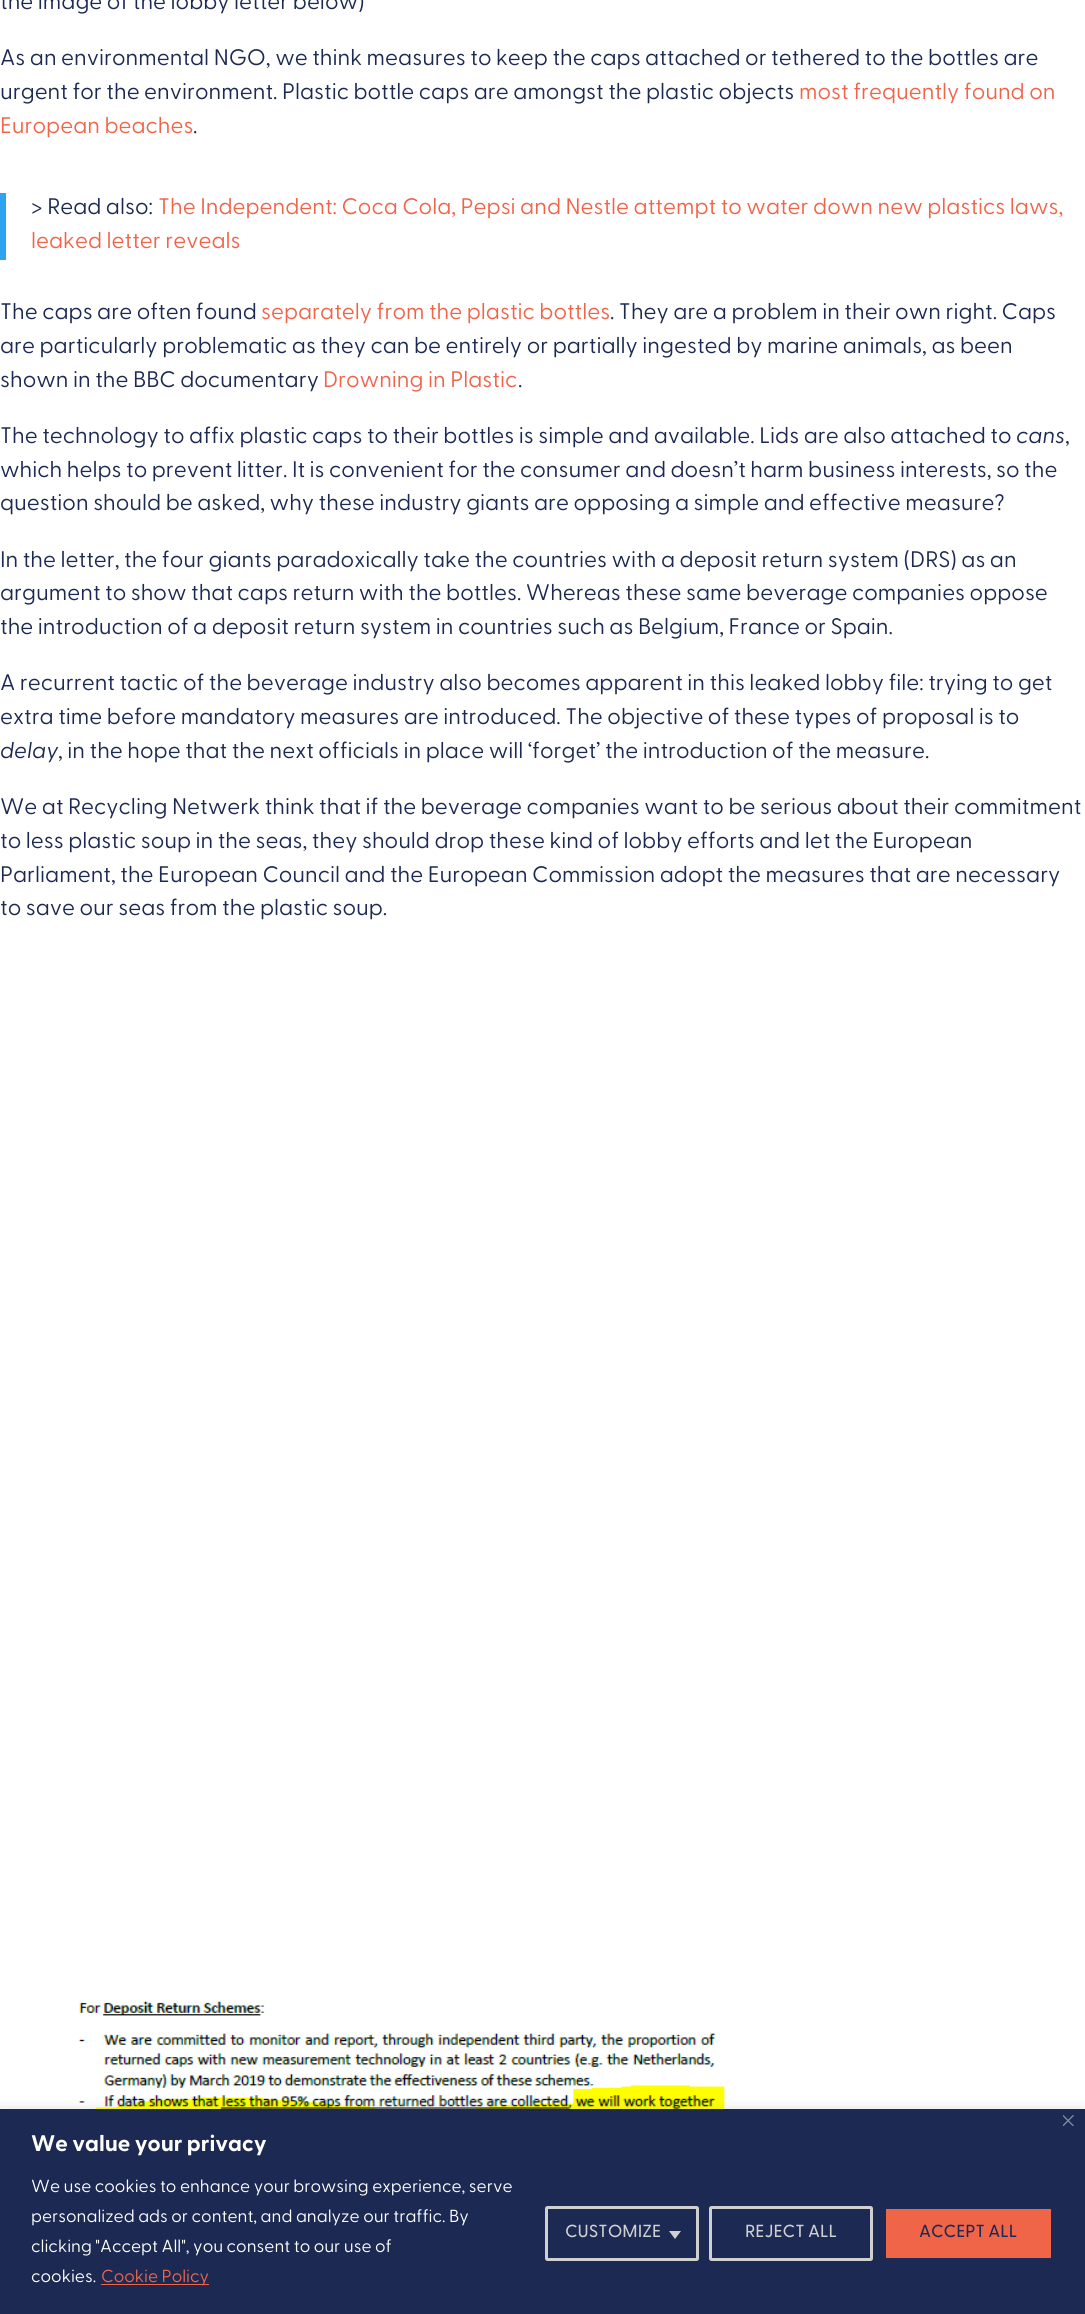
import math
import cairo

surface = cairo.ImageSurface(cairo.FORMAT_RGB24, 1085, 2314)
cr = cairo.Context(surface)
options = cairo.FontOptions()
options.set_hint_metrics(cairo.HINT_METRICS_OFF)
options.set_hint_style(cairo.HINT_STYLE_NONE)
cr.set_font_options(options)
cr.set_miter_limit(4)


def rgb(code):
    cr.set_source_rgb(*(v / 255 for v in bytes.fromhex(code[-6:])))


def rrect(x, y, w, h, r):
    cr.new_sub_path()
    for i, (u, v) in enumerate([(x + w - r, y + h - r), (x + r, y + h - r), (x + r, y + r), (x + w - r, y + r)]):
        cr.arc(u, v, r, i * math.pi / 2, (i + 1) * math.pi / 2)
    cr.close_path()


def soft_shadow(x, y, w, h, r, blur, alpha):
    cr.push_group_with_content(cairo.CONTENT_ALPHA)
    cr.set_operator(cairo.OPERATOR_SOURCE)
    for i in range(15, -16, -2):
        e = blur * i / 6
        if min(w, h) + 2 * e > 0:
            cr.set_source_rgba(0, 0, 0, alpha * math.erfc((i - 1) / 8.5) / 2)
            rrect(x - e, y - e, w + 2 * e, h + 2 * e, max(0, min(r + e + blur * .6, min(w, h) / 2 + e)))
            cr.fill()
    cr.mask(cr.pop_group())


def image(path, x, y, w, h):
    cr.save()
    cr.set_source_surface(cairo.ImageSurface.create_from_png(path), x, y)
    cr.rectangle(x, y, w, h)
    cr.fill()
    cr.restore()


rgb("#ffffff")
cr.paint()
rgb("#2ea3f2")
cr.rectangle(0, 193, 6, 67)
cr.fill()
image("img/1.png", 78, 2001, 648, 108)
rgb("#acabab")
soft_shadow(0, 2108, 1085, 206, 0, 6, 0.3)
rgb("#1c2953")
cr.rectangle(0, 2109, 1085, 205)
cr.fill()
image("img/2.png", 1063, 2115, 11, 11)
rgb("#f06548")
cr.rectangle(101, 2284, 108, 1)
cr.fill()
rrect(546.5, 2207.5, 151, 52, 1)
rgb("#d0d0d0")
cr.set_line_width(3)
cr.stroke()
cr.new_path()
cr.move_to(669, 2231)
cr.line_to(681, 2231)
cr.line_to(675, 2239)
cr.close_path()
cr.fill()
rrect(710.5, 2207.5, 161, 52, 1)
cr.stroke()
rgb("#f06548")
rrect(884.5, 2207.5, 168, 52, 1)
cr.fill_preserve()
rgb("#1c2953")
cr.stroke()
cr.select_font_face("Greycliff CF")
cr.set_font_size(22.5)
for x, y, s in [
    (0, 9, "the image of the lobby letter below)"),
    (0, 65, "As an environmental NGO, we think measures to keep the caps attached or tethered to the bottles are"),
    (0, 99, "urgent for the environment. Plastic bottle caps are amongst the plastic objects"),
]:
    cr.move_to(x, y)
    cr.show_text(s)
rgb("#f06449")
cr.move_to(799, 99)
cr.show_text("most frequently found on")
cr.move_to(0, 133)
cr.show_text("European beaches")
rgb("#1c2953")
cr.move_to(193, 133)
cr.show_text(".")
cr.move_to(31, 214)
cr.show_text("> Read also:")
rgb("#f06449")
cr.move_to(158, 214)
cr.show_text("The Independent: Coca Cola, Pepsi and Nestle attempt to water down new plastics laws,")
cr.move_to(31, 248)
cr.show_text("leaked letter reveals")
rgb("#1c2953")
cr.move_to(0, 319)
cr.show_text("The caps are often found")
rgb("#f06449")
cr.move_to(261, 319)
cr.show_text("separately from the plastic bottles")
rgb("#1c2953")
for x, y, s in [
    (610, 319, ". They are a problem in their own right. Caps"),
    (0, 353, "are particularly problematic as they can be entirely or partially ingested by marine animals, as been"),
    (0, 387, "shown in the BBC documentary"),
]:
    cr.move_to(x, y)
    cr.show_text(s)
rgb("#f06449")
cr.move_to(323, 387)
cr.show_text("Drowning in Plastic")
rgb("#1c2953")
cr.move_to(518, 387)
cr.show_text(".")
cr.move_to(0, 443)
cr.show_text("The technology to affix plastic caps to their bottles is simple and available. Lids are also attached to")
cr.select_font_face("Greycliff CF", cairo.FONT_SLANT_ITALIC)
cr.move_to(1016, 443)
cr.show_text("cans")
cr.select_font_face("Greycliff CF")
for x, y, s in [
    (1065, 443, ","),
    (0, 477, "which helps to prevent litter. It is convenient for the consumer and doesn’t harm business interests, so the"),
    (0, 510, "question should be asked, why these industry giants are opposing a simple and effective measure?"),
    (0, 567, "In the letter, the four giants paradoxically take the countries with a deposit return system (DRS) as an"),
    (0, 600, "argument to show that caps return with the bottles. Whereas these same beverage companies oppose"),
    (0, 634, "the introduction of a deposit return system in countries such as Belgium, France or Spain."),
    (0, 690, "A recurrent tactic of the beverage industry also becomes apparent in this leaked lobby file: trying to get"),
    (0, 724, "extra time before mandatory measures are introduced. The objective of these types of proposal is to"),
]:
    cr.move_to(x, y)
    cr.show_text(s)
cr.select_font_face("Greycliff CF", cairo.FONT_SLANT_ITALIC)
cr.move_to(0, 758)
cr.show_text("delay")
cr.select_font_face("Greycliff CF")
for x, y, s in [
    (58, 758, ", in the hope that the next officials in place will ‘forget’ the introduction of the measure."),
    (0, 814, "We at Recycling Netwerk think that if the beverage companies want to be serious about their commitment"),
    (0, 848, "to less plastic soup in the seas, they should drop these kind of lobby efforts and let the European"),
    (0, 882, "Parliament, the European Council and the European Commission adopt the measures that are necessary"),
    (0, 915, "to save our seas from the plastic soup."),
]:
    cr.move_to(x, y)
    cr.show_text(s)
cr.select_font_face("Greycliff CF", cairo.FONT_SLANT_NORMAL, cairo.FONT_WEIGHT_BOLD)
rgb("#ffffff")
cr.move_to(31, 2151)
cr.show_text("We value your privacy")
cr.select_font_face("Greycliff CF")
cr.set_font_size(17.5)
for x, y, s in [
    (31, 2192, "We use cookies to enhance your browsing experience, serve"),
    (31, 2222, "personalized ads or content, and analyze our traffic. By"),
    (31, 2252, "clicking \"Accept All\", you consent to our use of"),
    (31, 2282, "cookies."),
]:
    cr.move_to(x, y)
    cr.show_text(s)
rgb("#f06449")
cr.move_to(101, 2282)
cr.show_text("Cookie Policy")
cr.select_font_face("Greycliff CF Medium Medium")
rgb("#d0d0d0")
cr.move_to(565, 2237)
cr.show_text("CUSTOMIZE")
cr.move_to(745, 2237)
cr.show_text("REJECT ALL")
rgb("#1c2953")
cr.move_to(919, 2237)
cr.show_text("ACCEPT ALL")
surface.write_to_png("page.png")
